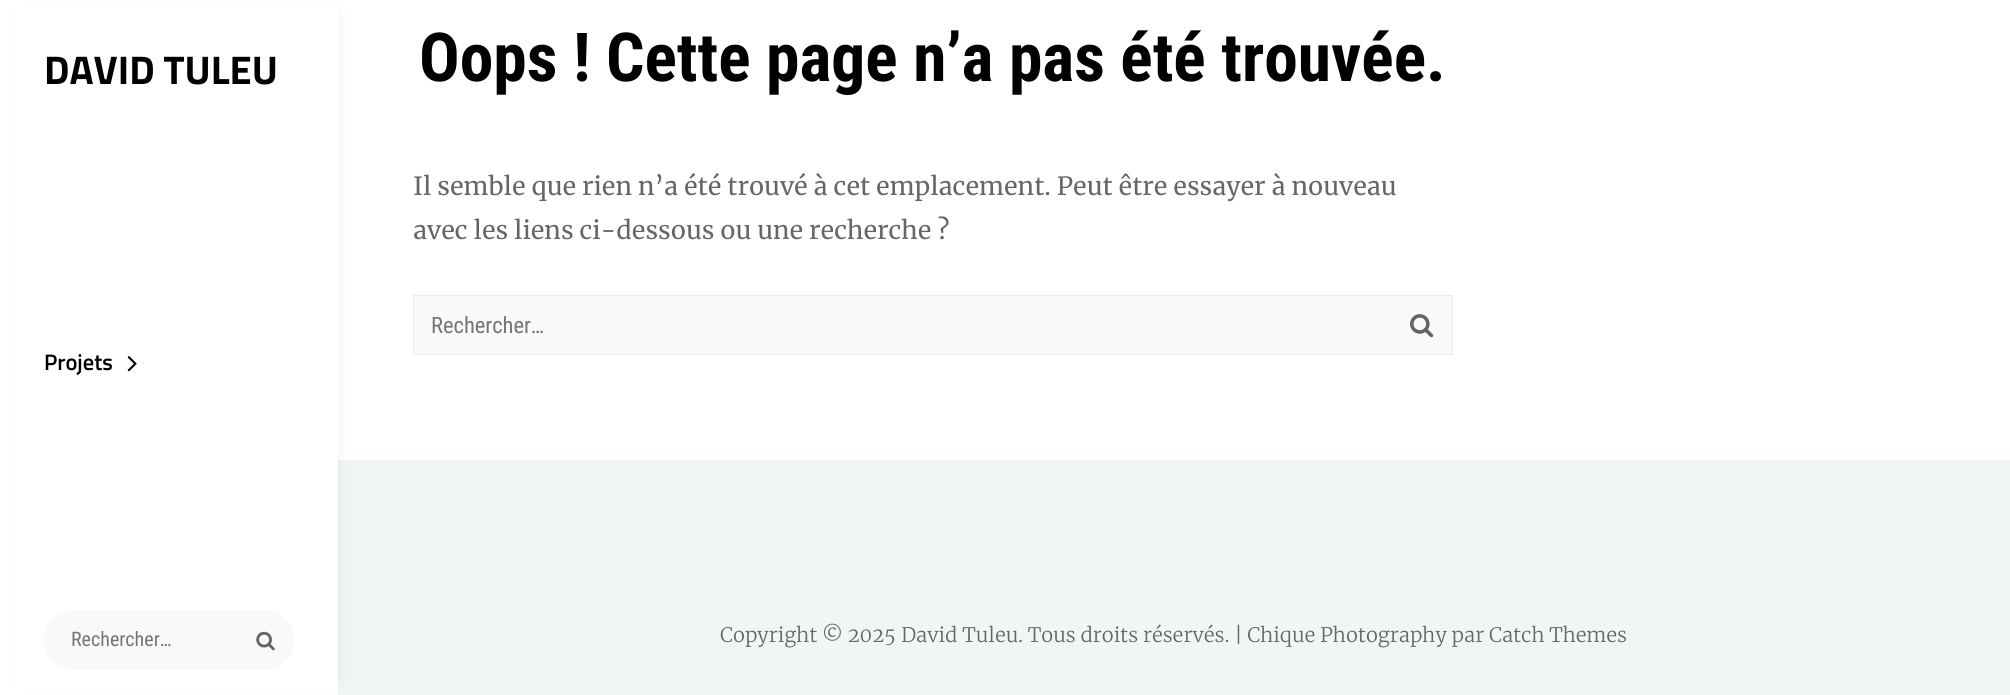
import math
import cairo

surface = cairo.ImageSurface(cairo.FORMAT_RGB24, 2010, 695)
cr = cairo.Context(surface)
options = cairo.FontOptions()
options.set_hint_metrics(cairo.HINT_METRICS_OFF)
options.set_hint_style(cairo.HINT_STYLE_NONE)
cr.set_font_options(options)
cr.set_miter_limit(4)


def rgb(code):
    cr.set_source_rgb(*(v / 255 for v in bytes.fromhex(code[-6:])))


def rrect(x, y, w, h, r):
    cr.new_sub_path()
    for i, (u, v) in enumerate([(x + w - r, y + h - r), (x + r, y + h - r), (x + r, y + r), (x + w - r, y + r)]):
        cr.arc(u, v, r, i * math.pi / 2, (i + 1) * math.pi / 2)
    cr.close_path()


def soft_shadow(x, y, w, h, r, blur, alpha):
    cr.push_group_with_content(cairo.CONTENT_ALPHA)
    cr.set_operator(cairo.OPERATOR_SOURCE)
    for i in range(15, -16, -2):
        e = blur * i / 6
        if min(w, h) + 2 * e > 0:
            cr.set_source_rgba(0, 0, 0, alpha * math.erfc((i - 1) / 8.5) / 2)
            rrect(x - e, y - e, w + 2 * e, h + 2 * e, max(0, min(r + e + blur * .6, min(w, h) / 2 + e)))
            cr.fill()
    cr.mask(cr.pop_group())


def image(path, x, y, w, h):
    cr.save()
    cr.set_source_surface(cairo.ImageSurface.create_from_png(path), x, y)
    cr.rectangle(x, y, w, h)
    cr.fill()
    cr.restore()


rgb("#ffffff")
cr.paint()
rgb("#f2f5f6")
cr.rectangle(338, 460, 1672, 235)
cr.fill()
rgb("#000000")
soft_shadow(30, 18, 303, 660, 0, 11, 0.1)
rgb("#ffffff")
cr.rectangle(16, 4, 322, 688)
cr.fill()
image("img/1.png", 127, 356, 10, 16)
rgb("#f9f9f9")
rrect(44, 610, 250, 60, 30)
cr.fill()
image("img/2.png", 256, 631, 19, 20)
cr.rectangle(413.5, 295.5, 1039, 59)
cr.fill_preserve()
rgb("#ebebeb")
cr.set_line_width(1)
cr.stroke()
image("img/3.png", 1410, 314, 24, 24)
cr.select_font_face("Titillium Web", cairo.FONT_SLANT_NORMAL, cairo.FONT_WEIGHT_BOLD)
cr.set_font_size(40)
rgb("#000000")
cr.move_to(44, 84)
cr.show_text("DAVID TULEU")
cr.select_font_face("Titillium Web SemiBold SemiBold")
cr.set_font_size(22.5)
cr.move_to(44, 370)
cr.show_text("Projets")
cr.select_font_face("Roboto Condensed")
cr.set_font_size(20)
rgb("#757575")
cr.move_to(71, 646)
cr.show_text("Rechercher…")
cr.select_font_face("Roboto Condensed", cairo.FONT_SLANT_NORMAL, cairo.FONT_WEIGHT_BOLD)
cr.set_font_size(67.5)
rgb("#000000")
cr.move_to(419, 81)
cr.show_text("Oops ! Cette page n’a pas été trouvée.")
cr.select_font_face("Merriweather")
cr.set_font_size(25)
rgb("#666666")
cr.move_to(413, 195)
cr.show_text("Il semble que rien n’a été trouvé à cet emplacement. Peut être essayer à nouveau")
cr.move_to(413, 239)
cr.show_text("avec les liens ci-dessous ou une recherche ?")
cr.select_font_face("Roboto Condensed")
cr.set_font_size(22.5)
rgb("#757575")
cr.move_to(431, 333)
cr.show_text("Rechercher…")
cr.select_font_face("Merriweather Light")
cr.set_font_size(20)
rgb("#666666")
for x, y, s in [
    (720, 642, "Copyright © 2025"),
    (901, 642, "David Tuleu"),
    (1018, 642, ". Tous droits réservés. | Chique Photography par"),
    (1489, 642, "Catch Themes"),
]:
    cr.move_to(x, y)
    cr.show_text(s)
surface.write_to_png("page.png")
